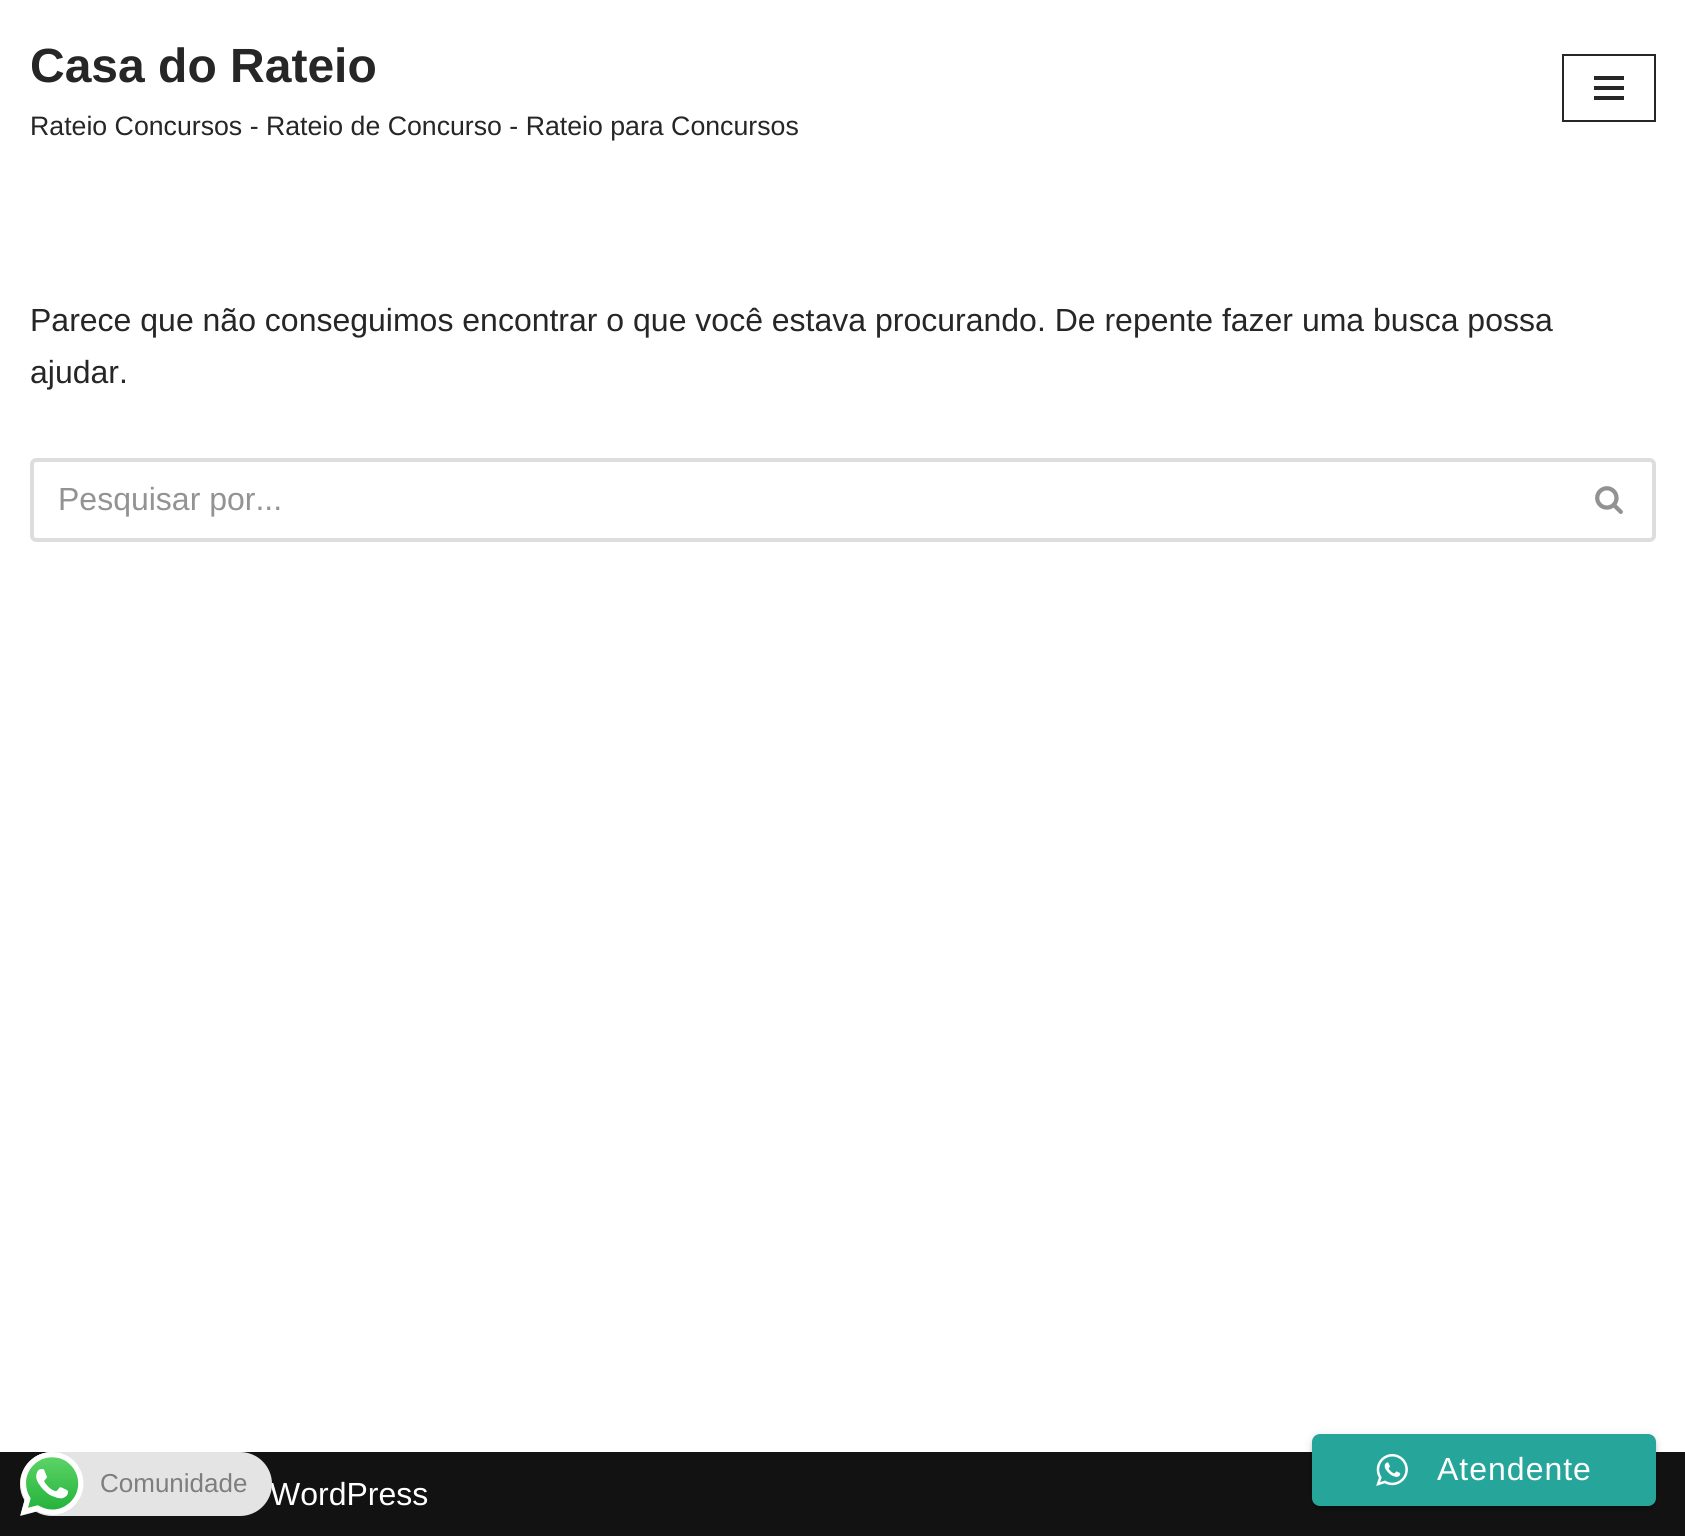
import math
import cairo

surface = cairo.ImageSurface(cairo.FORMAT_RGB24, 1685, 1536)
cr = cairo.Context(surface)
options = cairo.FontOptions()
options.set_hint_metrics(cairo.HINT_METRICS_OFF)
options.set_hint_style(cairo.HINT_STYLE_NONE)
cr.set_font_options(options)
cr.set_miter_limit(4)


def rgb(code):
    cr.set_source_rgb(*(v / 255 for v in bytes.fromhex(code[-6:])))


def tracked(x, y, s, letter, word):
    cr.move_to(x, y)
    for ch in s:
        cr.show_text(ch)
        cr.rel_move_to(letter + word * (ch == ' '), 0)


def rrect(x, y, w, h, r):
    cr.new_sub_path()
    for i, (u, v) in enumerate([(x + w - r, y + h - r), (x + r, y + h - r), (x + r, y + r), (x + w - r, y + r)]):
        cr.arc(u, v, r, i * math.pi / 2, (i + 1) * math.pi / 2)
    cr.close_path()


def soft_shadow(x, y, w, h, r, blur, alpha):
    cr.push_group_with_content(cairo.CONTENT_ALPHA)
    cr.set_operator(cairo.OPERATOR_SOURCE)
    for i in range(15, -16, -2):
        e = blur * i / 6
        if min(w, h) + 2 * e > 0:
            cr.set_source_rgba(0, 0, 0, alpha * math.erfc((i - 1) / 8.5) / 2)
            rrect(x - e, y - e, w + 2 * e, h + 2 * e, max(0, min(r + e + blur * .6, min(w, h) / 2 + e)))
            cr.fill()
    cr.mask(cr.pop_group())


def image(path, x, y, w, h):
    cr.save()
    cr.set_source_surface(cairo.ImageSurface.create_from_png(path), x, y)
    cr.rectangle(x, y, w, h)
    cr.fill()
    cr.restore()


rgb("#ffffff")
cr.paint()
cr.rectangle(1563, 55, 92, 66)
rgb("#272626")
cr.stroke()
for x, y, w, h, color in [
    (1594, 76, 30, 4, "#272626"),
    (1594, 86, 30, 4, "#272626"),
    (1594, 96, 30, 4, "#272626"),
]:
    rgb(color)
    cr.rectangle(x, y, w, h)
    cr.fill()
rgb("#dddddd")
cr.set_fill_rule(cairo.FILL_RULE_EVEN_ODD)
cr.new_path()
cr.move_to(36, 458)
cr.line_to(1566, 458)
cr.line_to(1566, 542)
cr.line_to(36, 542)
cr.curve_to(33, 542, 30, 539, 30, 536)
cr.line_to(30, 464)
cr.curve_to(30, 461, 33, 458, 36, 458)
cr.close_path()
cr.move_to(36, 462)
cr.line_to(1566, 462)
cr.line_to(1566, 538)
cr.line_to(36, 538)
cr.curve_to(35, 538, 34, 537, 34, 536)
cr.line_to(34, 464)
cr.curve_to(34, 463, 35, 462, 36, 462)
cr.close_path()
cr.fill()
cr.new_path()
cr.move_to(1566, 458)
cr.line_to(1650, 458)
cr.curve_to(1653, 458, 1656, 461, 1656, 464)
cr.line_to(1656, 536)
cr.curve_to(1656, 539, 1653, 542, 1650, 542)
cr.line_to(1566, 542)
cr.close_path()
cr.move_to(1566, 462)
cr.line_to(1650, 462)
cr.curve_to(1651, 462, 1652, 463, 1652, 464)
cr.line_to(1652, 536)
cr.curve_to(1652, 537, 1651, 538, 1650, 538)
cr.line_to(1566, 538)
cr.close_path()
cr.fill()
image("img/1.png", 1595, 486, 28, 28)
rgb("#121212")
cr.rectangle(0, 1452, 1685, 84)
cr.fill()
rgb("#000000")
soft_shadow(1316, 1444, 336, 64, 4, 1, 0.2)
soft_shadow(1312, 1436, 344, 72, 8, 5, 0.12)
soft_shadow(1312, 1438, 344, 72, 8, 2, 0.14)
rgb("#26a69a")
rrect(1312, 1434, 344, 72, 8)
cr.fill()
image("img/2.png", 1376, 1454, 32, 32)
cr.select_font_face("Liberation Sans", cairo.FONT_SLANT_NORMAL, cairo.FONT_WEIGHT_BOLD)
cr.set_font_size(48)
rgb("#272626")
cr.move_to(30, 82)
cr.show_text("Casa do Rateio")
cr.select_font_face("Liberation Sans")
cr.set_font_size(26.7)
cr.move_to(30, 135)
cr.show_text("Rateio Concursos - Rateio de Concurso - Rateio para Concursos")
cr.set_font_size(32)
cr.move_to(30, 331)
cr.show_text("Parece que não conseguimos encontrar o que você estava procurando. De repente fazer uma busca possa")
cr.move_to(30, 383)
cr.show_text("ajudar.")
rgb("#939393")
cr.move_to(58, 510)
cr.show_text("Pesquisar por...")
rgb("#ffffff")
cr.move_to(270, 1505)
cr.show_text("WordPress")
tracked(1437, 1480, "Atendente", 1, 0)
rgb("#e4e4e4")
rrect(20, 1452, 252, 64, 32)
cr.fill()
image("img/3.png", 20, 1452, 64, 64)
cr.set_font_size(26)
rgb("#7f7d7d")
cr.move_to(100, 1492)
cr.show_text("Comunidade")
surface.write_to_png("page.png")
